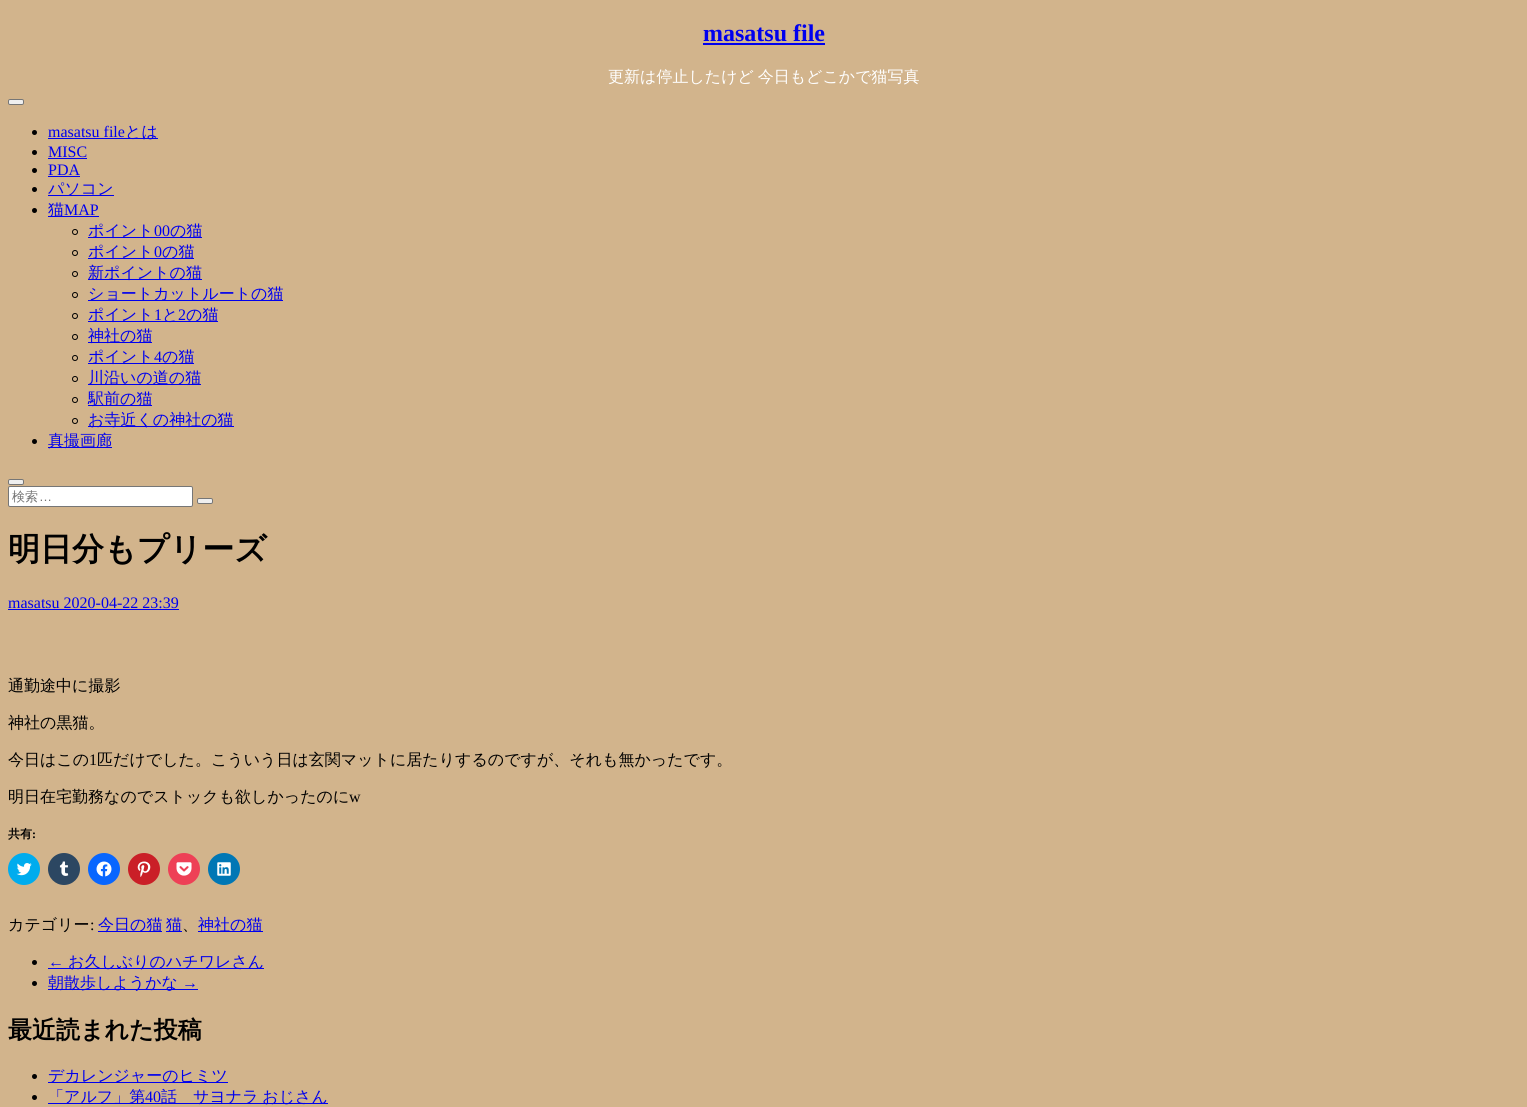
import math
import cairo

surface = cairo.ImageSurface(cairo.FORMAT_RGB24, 1527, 1107)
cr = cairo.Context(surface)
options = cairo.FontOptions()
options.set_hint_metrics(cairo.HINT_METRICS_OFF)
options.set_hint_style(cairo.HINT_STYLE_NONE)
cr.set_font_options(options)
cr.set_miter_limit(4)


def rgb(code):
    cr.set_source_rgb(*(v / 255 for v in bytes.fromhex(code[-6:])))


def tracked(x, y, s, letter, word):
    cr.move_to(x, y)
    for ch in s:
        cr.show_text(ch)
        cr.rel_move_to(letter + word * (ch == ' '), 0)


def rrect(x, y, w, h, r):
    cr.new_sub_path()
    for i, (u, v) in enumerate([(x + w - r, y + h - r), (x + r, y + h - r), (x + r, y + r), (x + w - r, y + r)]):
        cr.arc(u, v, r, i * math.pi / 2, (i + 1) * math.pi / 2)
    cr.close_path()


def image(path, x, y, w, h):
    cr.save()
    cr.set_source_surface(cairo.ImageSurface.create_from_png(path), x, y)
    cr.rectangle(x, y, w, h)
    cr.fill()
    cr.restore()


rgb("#d2b48c")
cr.paint()
rgb("#0000ee")
cr.rectangle(703, 43, 122, 2)
cr.fill()
rgb("#efefef")
rrect(8.5, 99.5, 15, 5, 1.5)
cr.fill_preserve()
rgb("#767676")
cr.set_line_width(1)
cr.stroke()
rgb("#000000")
cr.arc(34.5, 132.5, 2.5, 0, 2 * math.pi)
cr.fill()
rgb("#0000ee")
cr.rectangle(48, 138, 110, 1)
cr.fill()
rgb("#000000")
cr.arc(34.5, 152.5, 2.5, 0, 2 * math.pi)
cr.fill()
rgb("#0000ee")
cr.rectangle(48, 158, 39, 1)
cr.fill()
rgb("#000000")
cr.arc(34.5, 170.5, 2.5, 0, 2 * math.pi)
cr.fill()
rgb("#0000ee")
cr.rectangle(48, 176, 32, 1)
cr.fill()
rgb("#000000")
cr.arc(34.5, 189.5, 2.5, 0, 2 * math.pi)
cr.fill()
rgb("#0000ee")
cr.rectangle(48, 195, 66, 1)
cr.fill()
rgb("#000000")
cr.arc(34.5, 210.5, 2.5, 0, 2 * math.pi)
cr.fill()
rgb("#0000ee")
cr.rectangle(48, 216, 51, 1)
cr.fill()
cr.arc(75, 232, 2.5, 0, 2 * math.pi)
rgb("#000000")
cr.stroke()
rgb("#0000ee")
cr.rectangle(88, 237, 114, 1)
cr.fill()
cr.arc(75, 253, 2.5, 0, 2 * math.pi)
rgb("#000000")
cr.stroke()
rgb("#0000ee")
cr.rectangle(88, 258, 106, 1)
cr.fill()
cr.arc(75, 274, 2.5, 0, 2 * math.pi)
rgb("#000000")
cr.stroke()
rgb("#0000ee")
cr.rectangle(88, 279, 114, 1)
cr.fill()
cr.arc(75, 295, 2.5, 0, 2 * math.pi)
rgb("#000000")
cr.stroke()
rgb("#0000ee")
cr.rectangle(88, 300, 195, 1)
cr.fill()
cr.arc(75, 316, 2.5, 0, 2 * math.pi)
rgb("#000000")
cr.stroke()
rgb("#0000ee")
cr.rectangle(88, 321, 130, 1)
cr.fill()
cr.arc(75, 337, 2.5, 0, 2 * math.pi)
rgb("#000000")
cr.stroke()
rgb("#0000ee")
cr.rectangle(88, 342, 64, 1)
cr.fill()
cr.arc(75, 358, 2.5, 0, 2 * math.pi)
rgb("#000000")
cr.stroke()
rgb("#0000ee")
cr.rectangle(88, 363, 106, 1)
cr.fill()
cr.arc(75, 379, 2.5, 0, 2 * math.pi)
rgb("#000000")
cr.stroke()
rgb("#0000ee")
cr.rectangle(88, 384, 113, 1)
cr.fill()
cr.arc(75, 400, 2.5, 0, 2 * math.pi)
rgb("#000000")
cr.stroke()
rgb("#0000ee")
cr.rectangle(88, 405, 64, 1)
cr.fill()
cr.arc(75, 421, 2.5, 0, 2 * math.pi)
rgb("#000000")
cr.stroke()
rgb("#0000ee")
cr.rectangle(88, 426, 146, 1)
cr.fill()
rgb("#000000")
cr.arc(34.5, 441.5, 2.5, 0, 2 * math.pi)
cr.fill()
rgb("#0000ee")
cr.rectangle(48, 447, 64, 1)
cr.fill()
rgb("#efefef")
rrect(8.5, 479.5, 15, 5, 1.5)
cr.fill_preserve()
rgb("#767676")
cr.stroke()
rgb("#ffffff")
rrect(8.5, 486.5, 184, 20, 1.5)
cr.fill_preserve()
rgb("#767676")
cr.stroke()
rgb("#efefef")
rrect(197.5, 498.5, 15, 5, 1.5)
cr.fill_preserve()
rgb("#767676")
cr.stroke()
rgb("#0000ee")
cr.rectangle(8, 609, 171, 1)
cr.fill()
rgb("#00acee")
cr.arc(24, 869, 16, 0, 2 * math.pi)
cr.fill()
image("img/1.png", 16, 863, 16, 13)
rgb("#2c4762")
cr.arc(64, 869, 16, 0, 2 * math.pi)
cr.fill()
image("img/2.png", 59, 861, 10, 15)
rgb("#0866ff")
cr.arc(104, 869, 16, 0, 2 * math.pi)
cr.fill()
image("img/3.png", 96, 861, 16, 16)
rgb("#ca1f27")
cr.arc(144, 869, 16, 0, 2 * math.pi)
cr.fill()
image("img/4.png", 137, 861, 14, 16)
rgb("#ee4056")
cr.arc(184, 869, 16, 0, 2 * math.pi)
cr.fill()
image("img/5.png", 176, 862, 16, 14)
rgb("#0077b5")
cr.arc(224, 869, 16, 0, 2 * math.pi)
cr.fill()
image("img/6.png", 217, 862, 14, 14)
for x, y, w, h, color in [
    (98, 931, 64, 1, "#0000ee"),
    (166, 931, 16, 1, "#0000ee"),
    (198, 931, 65, 1, "#0000ee"),
]:
    rgb(color)
    cr.rectangle(x, y, w, h)
    cr.fill()
rgb("#000000")
cr.arc(34.5, 962.5, 2.5, 0, 2 * math.pi)
cr.fill()
rgb("#0000ee")
cr.rectangle(48, 968, 216, 1)
cr.fill()
rgb("#000000")
cr.arc(34.5, 983.5, 2.5, 0, 2 * math.pi)
cr.fill()
rgb("#0000ee")
cr.rectangle(48, 989, 150, 1)
cr.fill()
rgb("#000000")
cr.arc(34.5, 1076.5, 2.5, 0, 2 * math.pi)
cr.fill()
rgb("#0000ee")
cr.rectangle(48, 1082, 180, 1)
cr.fill()
rgb("#000000")
cr.arc(34.5, 1097.5, 2.5, 0, 2 * math.pi)
cr.fill()
rgb("#0000ee")
cr.rectangle(48, 1103, 280, 1)
cr.fill()
cr.select_font_face("Liberation Serif", cairo.FONT_SLANT_NORMAL, cairo.FONT_WEIGHT_BOLD)
cr.set_font_size(24)
cr.move_to(703, 41)
cr.show_text("masatsu file")
cr.select_font_face("WenQuanYi Zen Hei Medium")
cr.set_font_size(16)
rgb("#ffffff")
tracked(608, 82, "更新は停止したけど 今日もどこかで猫写真", 0, -1)
cr.select_font_face("Liberation Serif")
rgb("#0000ee")
cr.move_to(48, 137)
cr.show_text("masatsu file")
cr.select_font_face("WenQuanYi Zen Hei Medium")
cr.move_to(125, 137)
cr.show_text("とは")
cr.select_font_face("Liberation Serif")
cr.move_to(48, 157)
cr.show_text("MISC")
cr.move_to(48, 175)
cr.show_text("PDA")
cr.select_font_face("WenQuanYi Zen Hei Medium")
cr.move_to(48, 194)
cr.show_text("パソコン")
cr.move_to(48, 215)
cr.show_text("猫")
cr.select_font_face("Liberation Serif")
cr.move_to(64, 215)
cr.show_text("MAP")
cr.select_font_face("WenQuanYi Zen Hei Medium")
cr.move_to(88, 236)
cr.show_text("ポイント")
cr.select_font_face("Liberation Serif")
cr.move_to(154, 236)
cr.show_text("00")
cr.select_font_face("WenQuanYi Zen Hei Medium")
cr.move_to(170, 236)
cr.show_text("の猫")
cr.move_to(88, 257)
cr.show_text("ポイント")
cr.select_font_face("Liberation Serif")
cr.move_to(154, 257)
cr.show_text("0")
cr.select_font_face("WenQuanYi Zen Hei Medium")
for x, y, s in [
    (162, 257, "の猫"),
    (88, 278, "新ポイントの猫"),
    (88, 299, "ショートカットルートの猫"),
    (88, 320, "ポイント"),
]:
    cr.move_to(x, y)
    cr.show_text(s)
cr.select_font_face("Liberation Serif")
cr.move_to(154, 320)
cr.show_text("1")
cr.select_font_face("WenQuanYi Zen Hei Medium")
cr.move_to(162, 320)
cr.show_text("と")
cr.select_font_face("Liberation Serif")
cr.move_to(178, 320)
cr.show_text("2")
cr.select_font_face("WenQuanYi Zen Hei Medium")
for x, y, s in [
    (186, 320, "の猫"),
    (88, 341, "神社の猫"),
    (88, 362, "ポイント"),
]:
    cr.move_to(x, y)
    cr.show_text(s)
cr.select_font_face("Liberation Serif")
cr.move_to(154, 362)
cr.show_text("4")
cr.select_font_face("WenQuanYi Zen Hei Medium")
for x, y, s in [
    (162, 362, "の猫"),
    (88, 383, "川沿いの道の猫"),
    (88, 404, "駅前の猫"),
    (88, 425, "お寺近くの神社の猫"),
    (48, 446, "真撮画廊"),
]:
    cr.move_to(x, y)
    cr.show_text(s)
cr.set_font_size(13)
rgb("#757575")
cr.move_to(12, 501)
cr.show_text("検索")
cr.select_font_face("Liberation Sans")
cr.move_to(39, 501)
cr.show_text("…")
cr.select_font_face("WenQuanYi Zen Hei", cairo.FONT_SLANT_NORMAL, cairo.FONT_WEIGHT_BOLD)
cr.set_font_size(32)
rgb("#000000")
cr.move_to(8, 560)
cr.show_text("明日分もプリーズ")
cr.select_font_face("Liberation Serif")
cr.set_font_size(16)
rgb("#0000ee")
cr.move_to(8, 608)
cr.show_text("masatsu 2020-04-22 23:39")
cr.select_font_face("WenQuanYi Zen Hei Medium")
rgb("#000000")
for x, y, s in [
    (8, 691, "通勤途中に撮影"),
    (8, 728, "神社の黒猫。"),
    (8, 765, "今日はこの"),
]:
    cr.move_to(x, y)
    cr.show_text(s)
cr.select_font_face("Liberation Serif")
cr.move_to(89, 765)
cr.show_text("1")
cr.select_font_face("WenQuanYi Zen Hei Medium")
cr.move_to(97, 765)
cr.show_text("匹だけでした。こういう日は玄関マットに居たりするのですが、それも無かったです。")
cr.move_to(8, 802)
cr.show_text("明日在宅勤務なのでストックも欲しかったのに")
cr.select_font_face("Liberation Serif")
cr.move_to(349, 802)
cr.show_text("w")
cr.select_font_face("WenQuanYi Zen Hei", cairo.FONT_SLANT_NORMAL, cairo.FONT_WEIGHT_BOLD)
cr.set_font_size(12)
cr.move_to(8, 838)
cr.show_text("共有")
cr.select_font_face("Liberation Serif", cairo.FONT_SLANT_NORMAL, cairo.FONT_WEIGHT_BOLD)
cr.move_to(32, 838)
cr.show_text(":")
cr.select_font_face("WenQuanYi Zen Hei Medium")
cr.set_font_size(16)
cr.move_to(8, 930)
cr.show_text("カテゴリー")
cr.select_font_face("Liberation Serif")
cr.move_to(90, 930)
cr.show_text(":")
cr.select_font_face("WenQuanYi Zen Hei Medium")
rgb("#0000ee")
cr.move_to(98, 930)
cr.show_text("今日の猫")
cr.move_to(166, 930)
cr.show_text("猫")
rgb("#000000")
cr.move_to(182, 930)
cr.show_text("、")
rgb("#0000ee")
cr.move_to(198, 930)
cr.show_text("神社の猫")
cr.select_font_face("Liberation Serif")
cr.move_to(48, 967)
cr.show_text("←")
cr.select_font_face("WenQuanYi Zen Hei Medium")
cr.move_to(68, 967)
cr.show_text("お久しぶりのハチワレさん")
cr.move_to(48, 988)
cr.show_text("朝散歩しようかな")
cr.select_font_face("Liberation Serif")
cr.move_to(182, 988)
cr.show_text("→")
cr.select_font_face("WenQuanYi Zen Hei", cairo.FONT_SLANT_NORMAL, cairo.FONT_WEIGHT_BOLD)
cr.set_font_size(24)
rgb("#000000")
cr.move_to(8, 1038)
cr.show_text("最近読まれた投稿")
cr.select_font_face("WenQuanYi Zen Hei Medium")
cr.set_font_size(16)
rgb("#0000ee")
cr.move_to(48, 1081)
cr.show_text("デカレンジャーのヒミツ")
cr.move_to(48, 1102)
cr.show_text("「アルフ」第")
cr.select_font_face("Liberation Serif")
cr.move_to(145, 1102)
cr.show_text("40")
cr.select_font_face("WenQuanYi Zen Hei Medium")
tracked(161, 1102, "話　サヨナラ おじさん", 0, -1)
surface.write_to_png("page.png")
